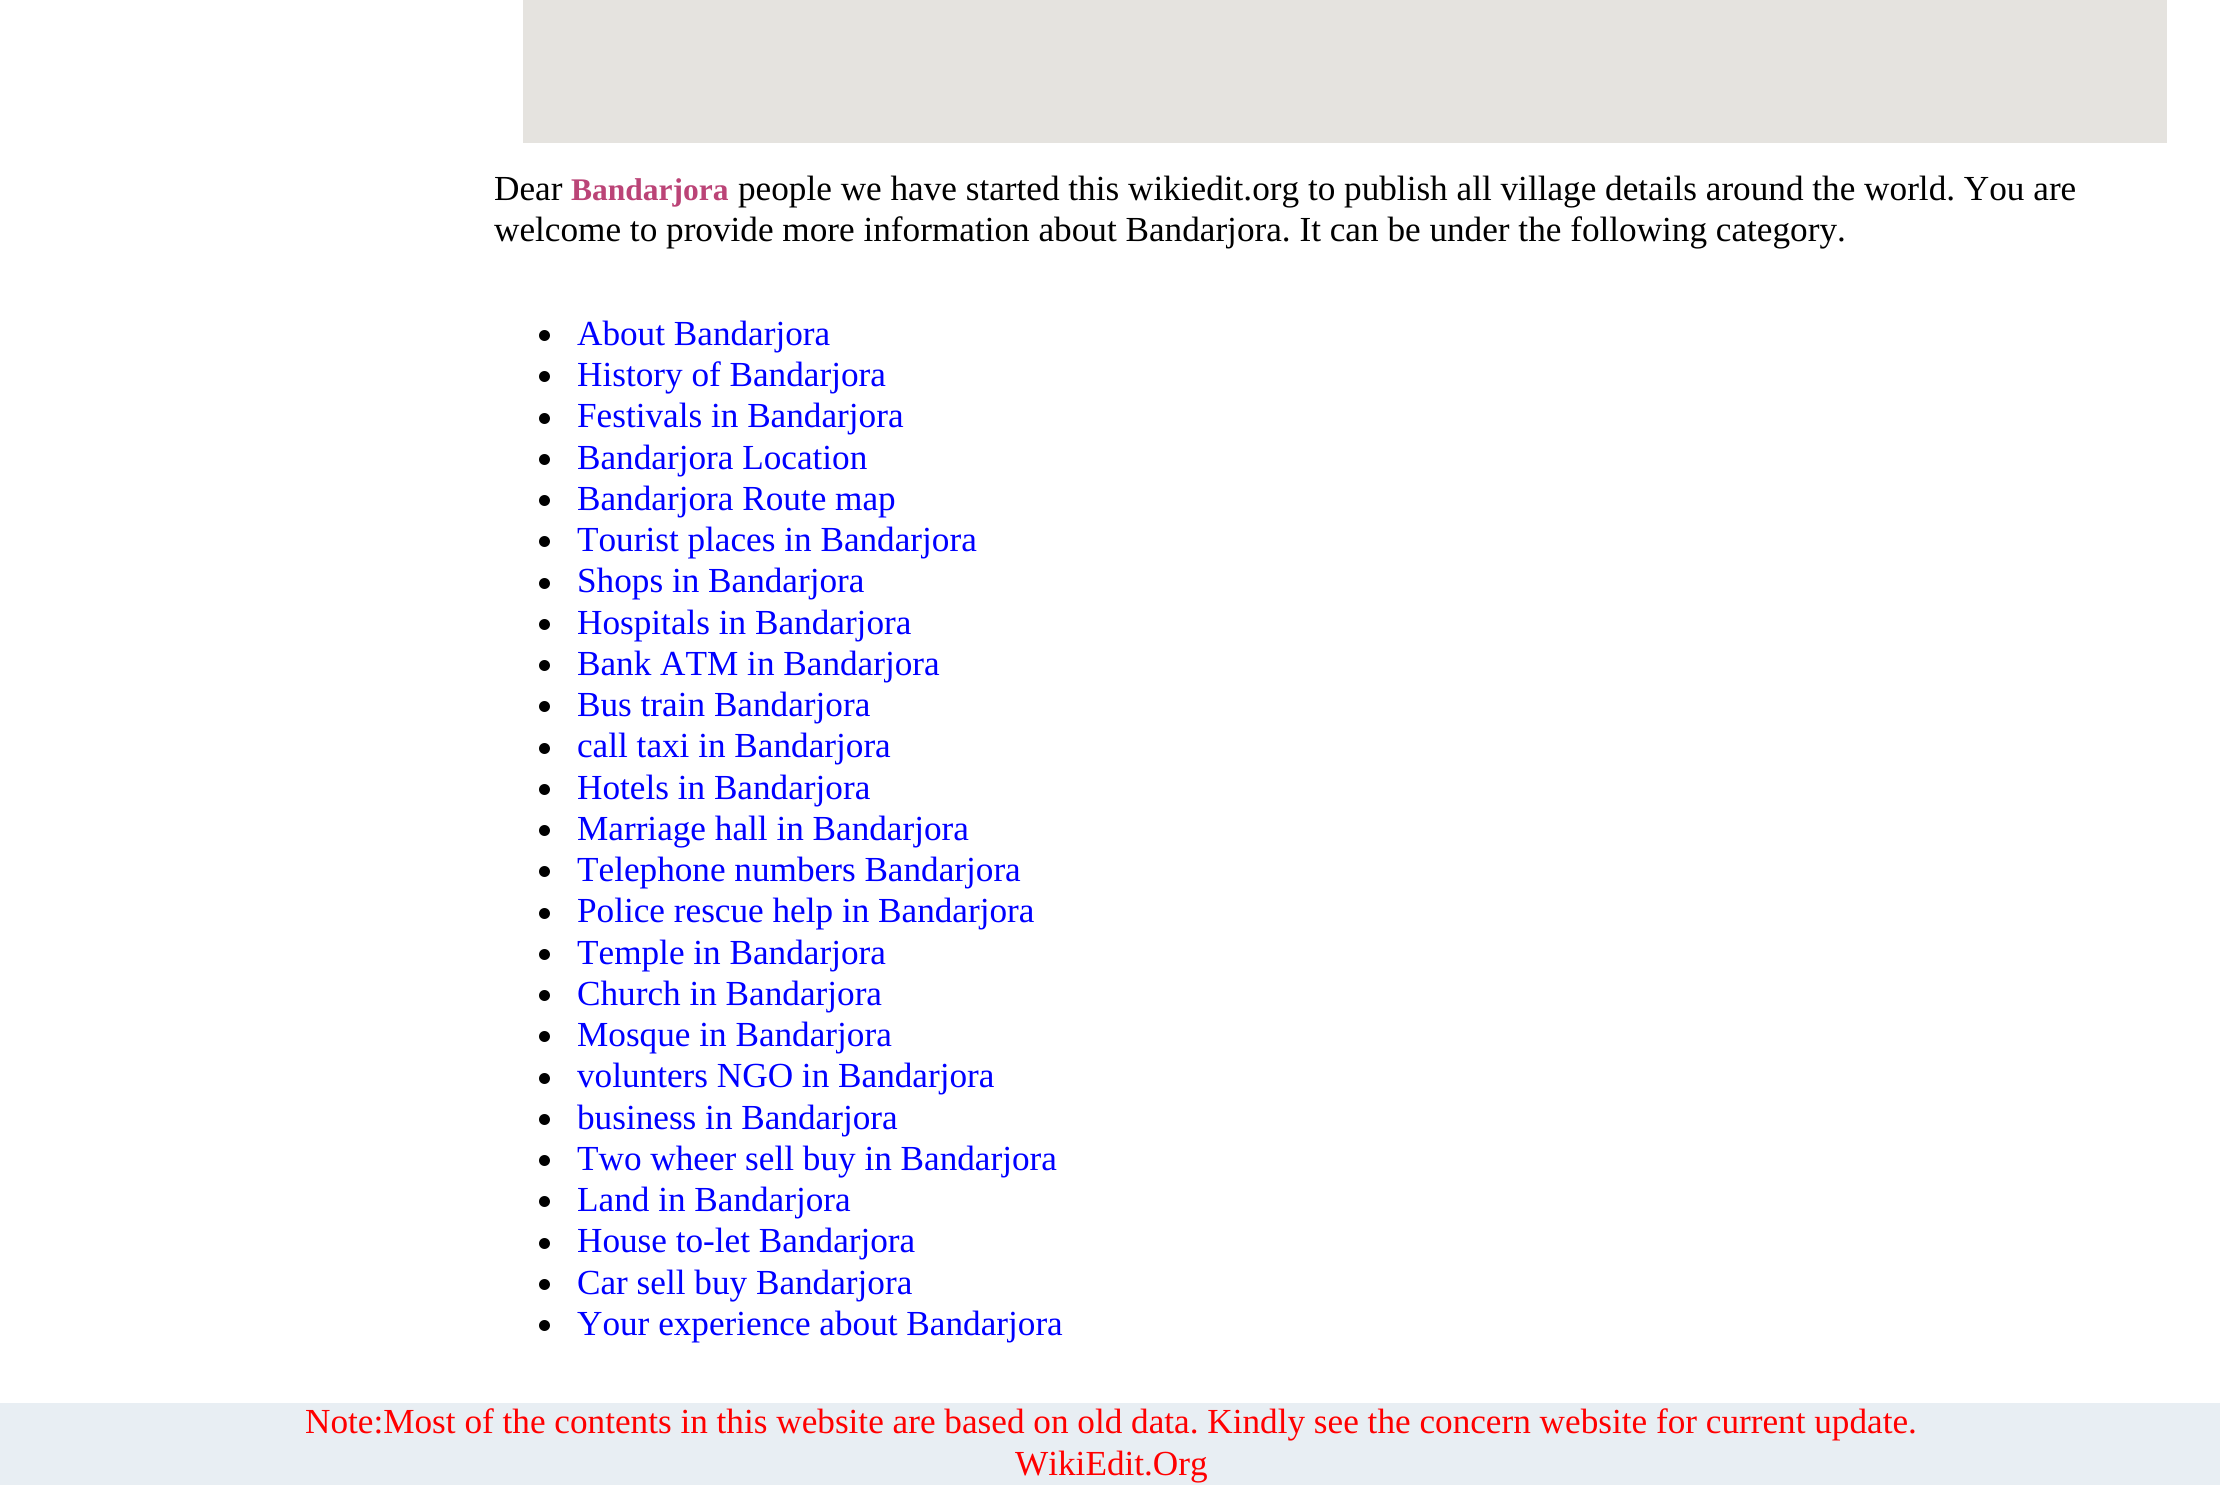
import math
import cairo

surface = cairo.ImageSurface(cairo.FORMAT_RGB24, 2220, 1485)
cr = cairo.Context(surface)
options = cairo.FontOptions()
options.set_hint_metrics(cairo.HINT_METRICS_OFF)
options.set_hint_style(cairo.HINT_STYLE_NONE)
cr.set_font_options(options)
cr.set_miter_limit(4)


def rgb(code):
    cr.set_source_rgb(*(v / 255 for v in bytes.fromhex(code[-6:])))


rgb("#ffffff")
cr.paint()
rgb("#e5e3df")
cr.rectangle(523, 0, 1644, 143)
cr.fill()
rgb("#000000")
cr.arc(544.5, 335.5, 5.5, 0, 2 * math.pi)
cr.fill()
cr.arc(544.5, 376.5, 5.5, 0, 2 * math.pi)
cr.fill()
cr.arc(544.5, 418.5, 5.5, 0, 2 * math.pi)
cr.fill()
cr.arc(544.5, 459.5, 5.5, 0, 2 * math.pi)
cr.fill()
cr.arc(544.5, 500.5, 5.5, 0, 2 * math.pi)
cr.fill()
cr.arc(544.5, 541.5, 5.5, 0, 2 * math.pi)
cr.fill()
cr.arc(544.5, 583.5, 5.5, 0, 2 * math.pi)
cr.fill()
cr.arc(544.5, 624.5, 5.5, 0, 2 * math.pi)
cr.fill()
cr.arc(544.5, 665.5, 5.5, 0, 2 * math.pi)
cr.fill()
cr.arc(544.5, 706.5, 5.5, 0, 2 * math.pi)
cr.fill()
cr.arc(544.5, 748.5, 5.5, 0, 2 * math.pi)
cr.fill()
cr.arc(544.5, 789.5, 5.5, 0, 2 * math.pi)
cr.fill()
cr.arc(544.5, 830.5, 5.5, 0, 2 * math.pi)
cr.fill()
cr.arc(544.5, 871.5, 5.5, 0, 2 * math.pi)
cr.fill()
cr.arc(544.5, 913.5, 5.5, 0, 2 * math.pi)
cr.fill()
cr.arc(544.5, 954.5, 5.5, 0, 2 * math.pi)
cr.fill()
cr.arc(544.5, 995.5, 5.5, 0, 2 * math.pi)
cr.fill()
cr.arc(544.5, 1036.5, 5.5, 0, 2 * math.pi)
cr.fill()
cr.arc(544.5, 1078.5, 5.5, 0, 2 * math.pi)
cr.fill()
cr.arc(544.5, 1119.5, 5.5, 0, 2 * math.pi)
cr.fill()
cr.arc(544.5, 1160.5, 5.5, 0, 2 * math.pi)
cr.fill()
cr.arc(544.5, 1201.5, 5.5, 0, 2 * math.pi)
cr.fill()
cr.arc(544.5, 1243.5, 5.5, 0, 2 * math.pi)
cr.fill()
cr.arc(544.5, 1284.5, 5.5, 0, 2 * math.pi)
cr.fill()
cr.arc(544.5, 1325.5, 5.5, 0, 2 * math.pi)
cr.fill()
rgb("#e8eef3")
cr.rectangle(0, 1403, 2220, 82)
cr.fill()
cr.select_font_face("Liberation Serif")
cr.set_font_size(35.2)
rgb("#000000")
cr.move_to(494, 200)
cr.show_text("Dear")
cr.select_font_face("Liberation Serif", cairo.FONT_SLANT_NORMAL, cairo.FONT_WEIGHT_BOLD)
cr.set_font_size(31.5)
rgb("#bb4477")
cr.move_to(571, 200)
cr.show_text("Bandarjora")
cr.select_font_face("Liberation Serif")
cr.set_font_size(35.2)
rgb("#000000")
cr.move_to(738, 200)
cr.show_text("people we have started this wikiedit.org to publish all village details around the world. You are")
cr.move_to(494, 241)
cr.show_text("welcome to provide more information about Bandarjora. It can be under the following category.")
rgb("#0000ff")
for x, y, s in [
    (577, 345, "About Bandarjora"),
    (577, 386, "History of Bandarjora"),
    (577, 427, "Festivals in Bandarjora"),
    (577, 469, "Bandarjora Location"),
    (577, 510, "Bandarjora Route map"),
    (577, 551, "Tourist places in Bandarjora"),
    (577, 592, "Shops in Bandarjora"),
    (577, 634, "Hospitals in Bandarjora"),
    (577, 675, "Bank ATM in Bandarjora"),
    (577, 716, "Bus train Bandarjora"),
    (577, 757, "call taxi in Bandarjora"),
    (577, 799, "Hotels in Bandarjora"),
    (577, 840, "Marriage hall in Bandarjora"),
    (577, 881, "Telephone numbers Bandarjora"),
    (577, 922, "Police rescue help in Bandarjora"),
    (577, 964, "Temple in Bandarjora"),
    (577, 1005, "Church in Bandarjora"),
    (577, 1046, "Mosque in Bandarjora"),
    (577, 1087, "volunters NGO in Bandarjora"),
    (577, 1129, "business in Bandarjora"),
    (577, 1170, "Two wheer sell buy in Bandarjora"),
    (577, 1211, "Land in Bandarjora"),
    (577, 1252, "House to-let Bandarjora"),
    (577, 1294, "Car sell buy Bandarjora"),
    (577, 1335, "Your experience about Bandarjora"),
]:
    cr.move_to(x, y)
    cr.show_text(s)
rgb("#ff0000")
cr.move_to(305, 1433)
cr.show_text("Note:Most of the contents in this website are based on old data. Kindly see the concern website for current update.")
cr.move_to(1015, 1475)
cr.show_text("WikiEdit.Org")
surface.write_to_png("page.png")
